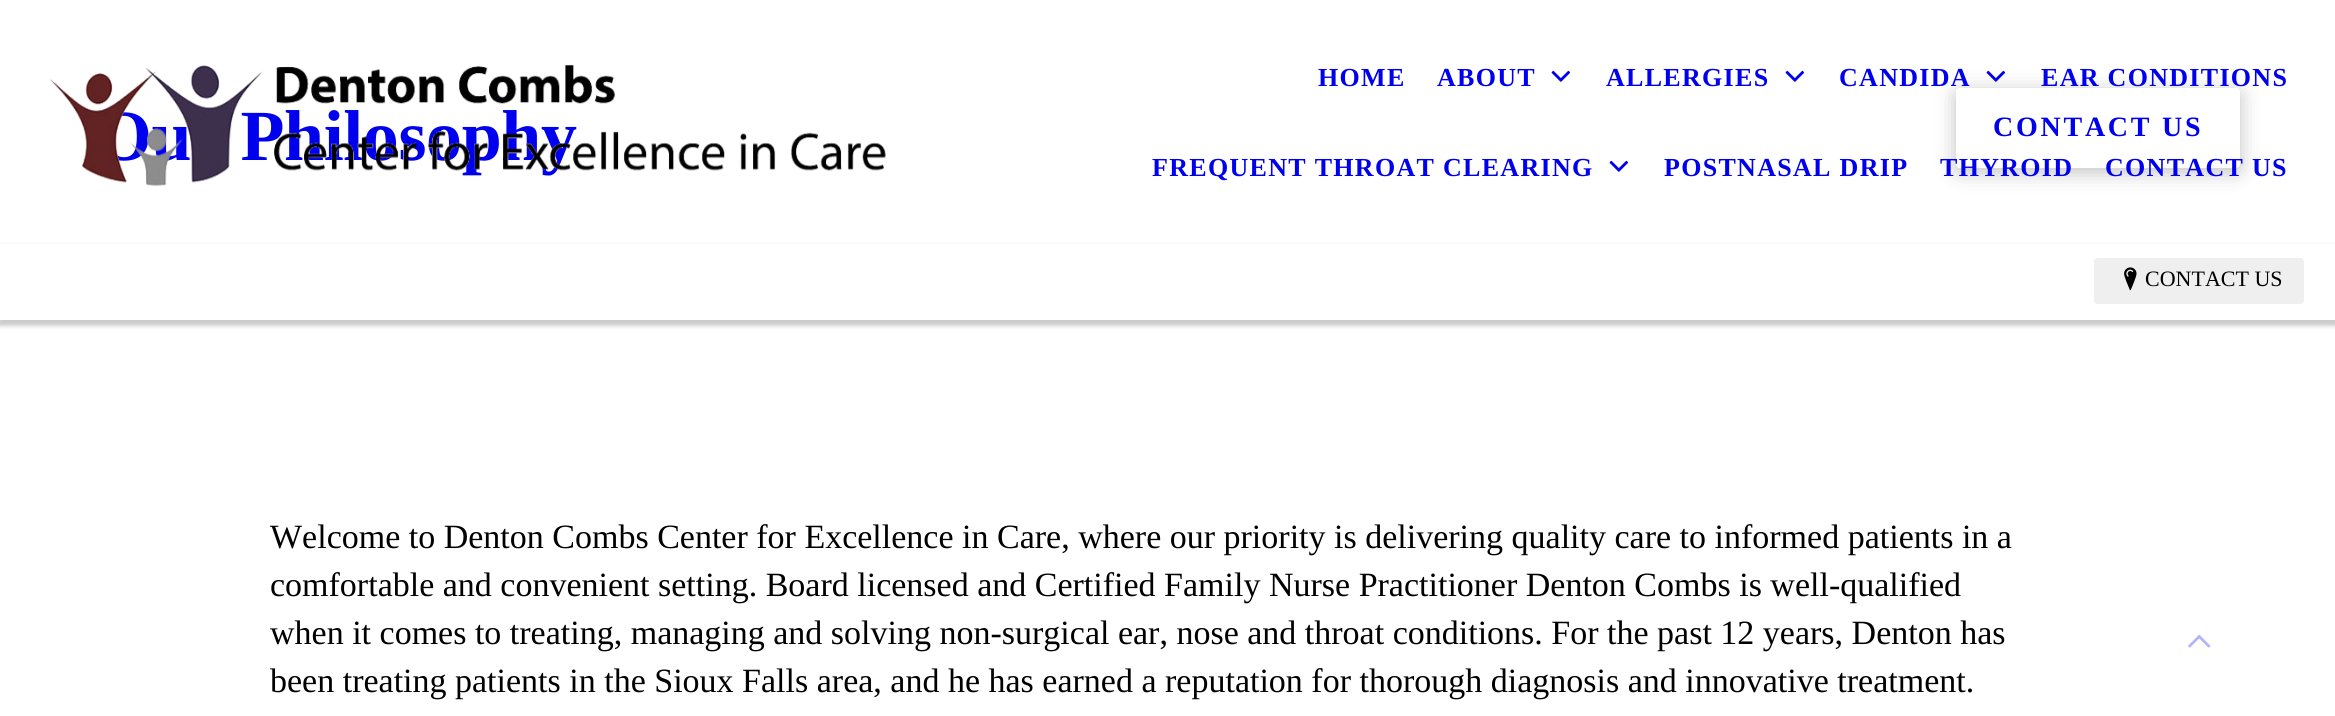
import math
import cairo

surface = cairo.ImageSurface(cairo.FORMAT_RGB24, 2335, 716)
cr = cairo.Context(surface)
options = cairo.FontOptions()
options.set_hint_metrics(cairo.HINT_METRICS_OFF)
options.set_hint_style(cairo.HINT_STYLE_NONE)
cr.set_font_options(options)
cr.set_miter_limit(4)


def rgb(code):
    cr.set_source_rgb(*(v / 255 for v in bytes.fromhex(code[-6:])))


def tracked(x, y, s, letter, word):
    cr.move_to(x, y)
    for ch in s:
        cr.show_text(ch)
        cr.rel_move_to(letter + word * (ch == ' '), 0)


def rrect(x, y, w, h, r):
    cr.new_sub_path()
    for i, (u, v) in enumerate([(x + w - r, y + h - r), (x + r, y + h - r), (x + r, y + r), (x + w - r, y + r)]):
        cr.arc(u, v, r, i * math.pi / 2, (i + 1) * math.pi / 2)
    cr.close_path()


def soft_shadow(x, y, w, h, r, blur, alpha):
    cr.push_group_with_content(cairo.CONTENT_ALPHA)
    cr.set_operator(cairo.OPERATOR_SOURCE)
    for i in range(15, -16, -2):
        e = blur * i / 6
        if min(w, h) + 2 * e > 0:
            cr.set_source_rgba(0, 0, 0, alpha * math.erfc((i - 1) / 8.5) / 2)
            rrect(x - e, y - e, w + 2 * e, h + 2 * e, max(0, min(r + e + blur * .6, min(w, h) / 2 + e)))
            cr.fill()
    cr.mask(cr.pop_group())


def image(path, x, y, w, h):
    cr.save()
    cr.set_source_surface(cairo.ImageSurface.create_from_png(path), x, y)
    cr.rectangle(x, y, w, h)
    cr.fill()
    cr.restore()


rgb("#ffffff")
cr.paint()
cr.save()
cr.set_fill_rule(cairo.FILL_RULE_EVEN_ODD)
cr.new_path()
cr.move_to(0, 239)
cr.line_to(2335, 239)
cr.line_to(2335, 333)
cr.line_to(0, 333)
cr.close_path()
cr.move_to(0, 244)
cr.line_to(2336, 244)
cr.line_to(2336, 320)
cr.line_to(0, 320)
cr.close_path()
cr.clip()
rgb("#000000")
soft_shadow(-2, 246, 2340, 80, 0, 2, 0.2)
cr.restore()
rgb("#efefef")
rrect(2094, 258, 210, 46, 4)
cr.fill()
image("img/2.png", 2124, 267, 13, 24)
cr.save()
cr.set_fill_rule(cairo.FILL_RULE_EVEN_ODD)
cr.new_path()
cr.move_to(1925, 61)
cr.line_to(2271, 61)
cr.line_to(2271, 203)
cr.line_to(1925, 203)
cr.close_path()
cr.move_to(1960, 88)
cr.line_to(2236, 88)
cr.curve_to(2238, 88, 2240, 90, 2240, 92)
cr.line_to(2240, 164)
cr.curve_to(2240, 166, 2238, 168, 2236, 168)
cr.line_to(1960, 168)
cr.curve_to(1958, 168, 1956, 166, 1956, 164)
cr.line_to(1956, 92)
cr.curve_to(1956, 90, 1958, 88, 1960, 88)
cr.close_path()
cr.clip()
rgb("#000000")
soft_shadow(1956, 92, 284, 80, 4, 10, 0.25)
cr.restore()
cr.select_font_face("Liberation Serif", cairo.FONT_SLANT_NORMAL, cairo.FONT_WEIGHT_BOLD)
cr.set_font_size(26)
rgb("#0000ee")
tracked(1318, 86, "HOME", 1.3, 0)
tracked(1437, 86, "ABOUT", 1.3, 0)
cr.select_font_face("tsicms", cairo.FONT_SLANT_NORMAL, cairo.FONT_WEIGHT_BOLD)
cr.set_font_size(23)
tracked(1549, 86, "-", 1.3, 0)
cr.select_font_face("Liberation Serif", cairo.FONT_SLANT_NORMAL, cairo.FONT_WEIGHT_BOLD)
cr.set_font_size(26)
tracked(1606, 86, "ALLERGIES", 1.3, 0)
cr.select_font_face("tsicms", cairo.FONT_SLANT_NORMAL, cairo.FONT_WEIGHT_BOLD)
cr.set_font_size(23)
tracked(1783, 86, "-", 1.3, 0)
cr.select_font_face("Liberation Serif", cairo.FONT_SLANT_NORMAL, cairo.FONT_WEIGHT_BOLD)
cr.set_font_size(26)
tracked(1839, 86, "CANDIDA", 1.3, 0)
cr.select_font_face("tsicms", cairo.FONT_SLANT_NORMAL, cairo.FONT_WEIGHT_BOLD)
cr.set_font_size(23)
tracked(1984, 86, "-", 1.3, 0)
cr.select_font_face("Liberation Serif", cairo.FONT_SLANT_NORMAL, cairo.FONT_WEIGHT_BOLD)
cr.set_font_size(26)
tracked(2041, 86, "EAR CONDITIONS", 1.3, 0)
tracked(1152, 176, "FREQUENT THROAT CLEARING", 1.3, 0)
cr.select_font_face("tsicms", cairo.FONT_SLANT_NORMAL, cairo.FONT_WEIGHT_BOLD)
cr.set_font_size(23)
tracked(1607, 176, "-", 1.3, 0)
cr.select_font_face("Liberation Serif", cairo.FONT_SLANT_NORMAL, cairo.FONT_WEIGHT_BOLD)
cr.set_font_size(26)
for x, y, s in [
    (1664, 176, "POSTNASAL DRIP"),
    (1940, 176, "THYROID"),
    (2105, 176, "CONTACT US"),
]:
    tracked(x, y, s, 1.3, 0)
cr.select_font_face("Liberation Serif")
cr.set_font_size(22)
rgb("#000000")
cr.move_to(2145, 286)
cr.show_text("CONTACT US")
cr.select_font_face("Liberation Serif", cairo.FONT_SLANT_NORMAL, cairo.FONT_WEIGHT_BOLD)
cr.set_font_size(72)
rgb("#0000ee")
tracked(96, 160, "Our Philosophy", -0.4, 0)
image("img/1.png", 50, 64, 837, 123)
cr.set_font_size(28)
tracked(1993, 136, "CONTACT US", 2.75, 0)
cr.select_font_face("Liberation Serif")
cr.set_font_size(34)
rgb("#000000")
for x, y, s in [
    (270, 548, "Welcome to Denton Combs Center for Excellence in Care, where our priority is delivering quality care to informed patients in a"),
    (270, 596, "comfortable and convenient setting. Board licensed and Certified Family Nurse Practitioner Denton Combs is well-qualified"),
    (270, 644, "when it comes to treating, managing and solving non-surgical ear, nose and throat conditions. For the past 12 years, Denton has"),
    (270, 692, "been treating patients in the Sioux Falls area, and he has earned a reputation for thorough diagnosis and innovative treatment."),
]:
    cr.move_to(x, y)
    cr.show_text(s)
cr.select_font_face("tsicms")
cr.set_font_size(29)
rgb("#b3b3fa")
cr.move_to(2188, 653)
cr.show_text("+")
surface.write_to_png("page.png")
